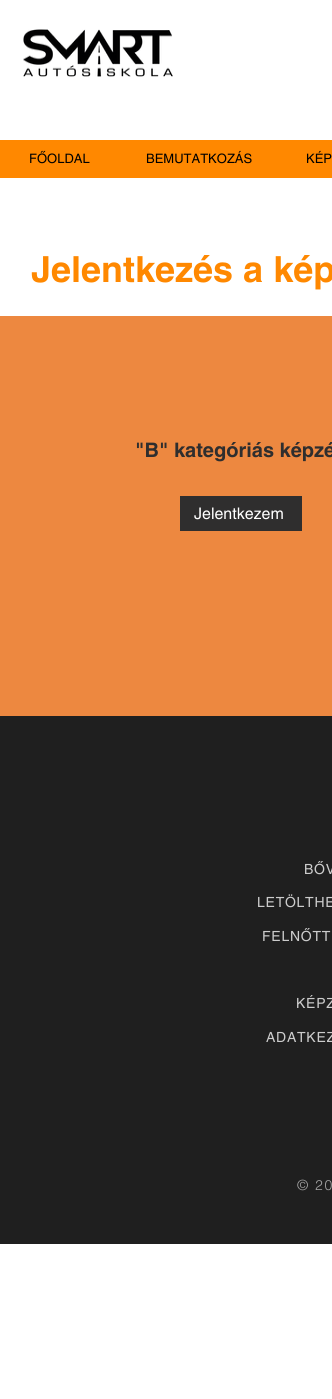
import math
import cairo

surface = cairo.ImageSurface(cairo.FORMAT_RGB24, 332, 1399)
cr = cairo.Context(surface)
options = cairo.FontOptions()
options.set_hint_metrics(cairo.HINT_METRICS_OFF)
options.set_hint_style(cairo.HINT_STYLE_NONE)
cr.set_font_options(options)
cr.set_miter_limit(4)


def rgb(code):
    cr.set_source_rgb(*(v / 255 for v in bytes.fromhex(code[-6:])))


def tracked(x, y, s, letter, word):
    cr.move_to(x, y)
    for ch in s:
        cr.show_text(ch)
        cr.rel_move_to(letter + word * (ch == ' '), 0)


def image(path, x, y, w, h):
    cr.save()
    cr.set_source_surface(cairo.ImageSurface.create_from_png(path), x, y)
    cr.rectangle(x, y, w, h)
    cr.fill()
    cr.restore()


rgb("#ffffff")
cr.paint()
image("img/1.png", 23, 29, 150, 48)
for x, y, w, h, color in [
    (0, 140, 332, 38, "#ff8800"),
    (0, 316, 332, 400, "#ed8840"),
    (180, 496, 122, 35, "#2f2e2e"),
    (0, 716, 332, 528, "#1f1f1f"),
]:
    rgb(color)
    cr.rectangle(x, y, w, h)
    cr.fill()
cr.select_font_face("helvetica")
cr.set_font_size(13)
rgb("#000000")
for x, y, s in [
    (29, 163, "FŐOLDAL"),
    (146, 163, "BEMUTATKOZÁS"),
    (306, 163, "KÉP"),
]:
    cr.move_to(x, y)
    cr.show_text(s)
cr.select_font_face("helvetica", cairo.FONT_SLANT_NORMAL, cairo.FONT_WEIGHT_BOLD)
cr.set_font_size(36)
rgb("#ff8800")
cr.move_to(31, 282)
cr.show_text("Jelentkezés a kép")
cr.set_font_size(20)
rgb("#2f2e2e")
cr.move_to(135, 457)
cr.show_text("\"B\" kategóriás képzé")
cr.select_font_face("helvetica")
cr.set_font_size(16)
rgb("#ffffff")
cr.move_to(194, 519)
cr.show_text("Jelentkezem")
cr.set_font_size(14)
rgb("#cccccc")
for x, y, s in [
    (304, 874, "BŐV"),
    (257, 907, "LETÖLTHE"),
    (262, 941, "FELNŐTT"),
    (296, 1008, "KÉPZ"),
    (266, 1042, "ADATKEZ"),
]:
    tracked(x, y, s, 0.75, 0)
cr.select_font_face("helvetica Light")
rgb("#a9a9a9")
tracked(297, 1190, "© 20", 1.5, 0)
surface.write_to_png("page.png")
